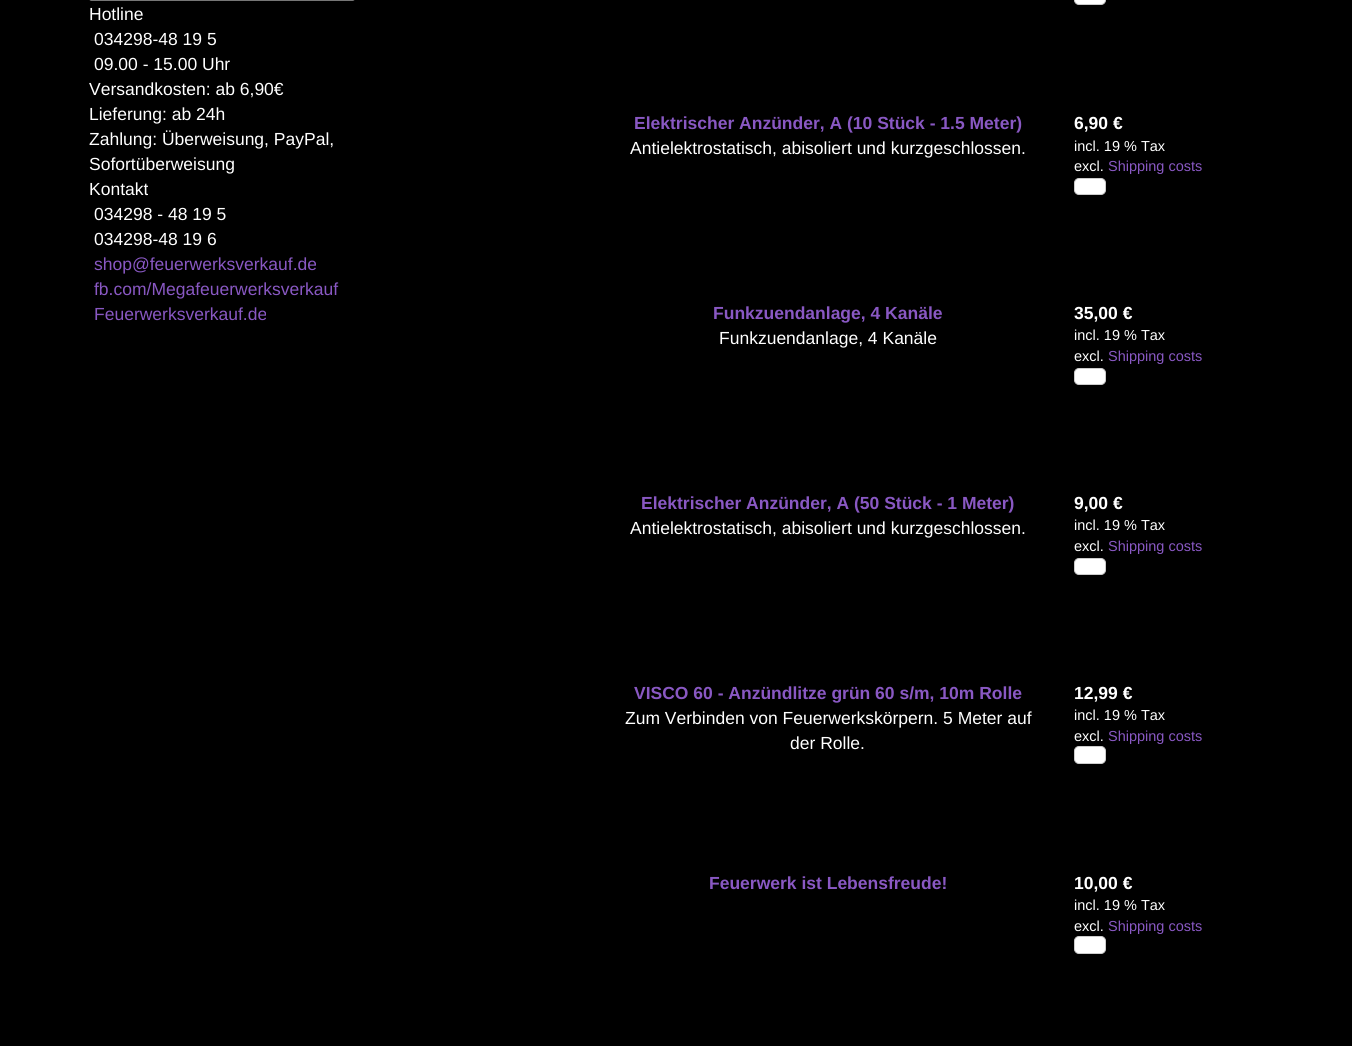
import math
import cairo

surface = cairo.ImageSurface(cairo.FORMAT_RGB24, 1352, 1046)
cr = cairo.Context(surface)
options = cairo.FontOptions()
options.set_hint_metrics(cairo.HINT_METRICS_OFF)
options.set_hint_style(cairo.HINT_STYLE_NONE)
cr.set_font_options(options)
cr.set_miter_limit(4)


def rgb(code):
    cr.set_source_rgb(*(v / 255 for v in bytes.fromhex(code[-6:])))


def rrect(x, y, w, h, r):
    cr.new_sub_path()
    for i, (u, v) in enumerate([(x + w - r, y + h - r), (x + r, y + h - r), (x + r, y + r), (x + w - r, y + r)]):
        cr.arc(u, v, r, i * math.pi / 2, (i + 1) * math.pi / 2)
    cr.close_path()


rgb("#000000")
cr.paint()
rrect(89.5, -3.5, 265, 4, 2)
rgb("#767676")
cr.set_line_width(1)
cr.stroke()
rgb("#ffffff")
rrect(1074.5, -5.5, 31, 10, 4.5)
cr.fill_preserve()
rgb("#cccccc")
cr.stroke()
rgb("#ffffff")
rrect(1074.5, 178.5, 31, 16, 4.5)
cr.fill_preserve()
rgb("#cccccc")
cr.stroke()
rgb("#ffffff")
rrect(1074.5, 368.5, 31, 16, 4.5)
cr.fill_preserve()
rgb("#cccccc")
cr.stroke()
rgb("#ffffff")
rrect(1074.5, 558.5, 31, 16, 4.5)
cr.fill_preserve()
rgb("#cccccc")
cr.stroke()
rgb("#ffffff")
rrect(1074.5, 746.5, 31, 17, 4.5)
cr.fill_preserve()
rgb("#cccccc")
cr.stroke()
rgb("#ffffff")
rrect(1074.5, 936.5, 31, 17, 4.5)
cr.fill_preserve()
rgb("#cccccc")
cr.stroke()
cr.select_font_face("Liberation Sans")
cr.set_font_size(17.5)
rgb("#ffffff")
for x, y, s in [
    (89, 20, "Hotline"),
    (94, 45, "034298-48 19 5"),
    (94, 70, "09.00 - 15.00 Uhr"),
    (89, 95, "Versandkosten: ab 6,90€"),
    (89, 120, "Lieferung: ab 24h"),
    (89, 145, "Zahlung: Überweisung, PayPal,"),
    (89, 170, "Sofortüberweisung"),
    (89, 195, "Kontakt"),
    (94, 220, "034298 - 48 19 5"),
    (94, 245, "034298-48 19 6"),
]:
    cr.move_to(x, y)
    cr.show_text(s)
rgb("#8958c3")
for x, y, s in [
    (94, 270, "shop@feuerwerksverkauf.de"),
    (94, 295, "fb.com/Megafeuerwerksverkauf"),
    (94, 320, "Feuerwerksverkauf.de"),
]:
    cr.move_to(x, y)
    cr.show_text(s)
cr.select_font_face("Liberation Sans", cairo.FONT_SLANT_NORMAL, cairo.FONT_WEIGHT_BOLD)
cr.move_to(634, 129)
cr.show_text("Elektrischer Anzünder, A (10 Stück - 1.5 Meter)")
cr.select_font_face("Liberation Sans")
rgb("#ffffff")
cr.move_to(630, 154)
cr.show_text("Antielektrostatisch, abisoliert und kurzgeschlossen.")
cr.select_font_face("Liberation Sans", cairo.FONT_SLANT_NORMAL, cairo.FONT_WEIGHT_BOLD)
cr.move_to(1074, 129)
cr.show_text("6,90 €")
cr.select_font_face("Liberation Sans")
cr.set_font_size(14.5)
cr.move_to(1074, 151)
cr.show_text("incl. 19 % Tax")
cr.move_to(1074, 171)
cr.show_text("excl.")
rgb("#8958c3")
cr.move_to(1108, 171)
cr.show_text("Shipping costs")
cr.select_font_face("Liberation Sans", cairo.FONT_SLANT_NORMAL, cairo.FONT_WEIGHT_BOLD)
cr.set_font_size(17.5)
cr.move_to(713, 319)
cr.show_text("Funkzuendanlage, 4 Kanäle")
cr.select_font_face("Liberation Sans")
rgb("#ffffff")
cr.move_to(719, 344)
cr.show_text("Funkzuendanlage, 4 Kanäle")
cr.select_font_face("Liberation Sans", cairo.FONT_SLANT_NORMAL, cairo.FONT_WEIGHT_BOLD)
cr.move_to(1074, 319)
cr.show_text("35,00 €")
cr.select_font_face("Liberation Sans")
cr.set_font_size(14.5)
cr.move_to(1074, 340)
cr.show_text("incl. 19 % Tax")
cr.move_to(1074, 361)
cr.show_text("excl.")
rgb("#8958c3")
cr.move_to(1108, 361)
cr.show_text("Shipping costs")
cr.select_font_face("Liberation Sans", cairo.FONT_SLANT_NORMAL, cairo.FONT_WEIGHT_BOLD)
cr.set_font_size(17.5)
cr.move_to(641, 509)
cr.show_text("Elektrischer Anzünder, A (50 Stück - 1 Meter)")
cr.select_font_face("Liberation Sans")
rgb("#ffffff")
cr.move_to(630, 534)
cr.show_text("Antielektrostatisch, abisoliert und kurzgeschlossen.")
cr.select_font_face("Liberation Sans", cairo.FONT_SLANT_NORMAL, cairo.FONT_WEIGHT_BOLD)
cr.move_to(1074, 509)
cr.show_text("9,00 €")
cr.select_font_face("Liberation Sans")
cr.set_font_size(14.5)
cr.move_to(1074, 530)
cr.show_text("incl. 19 % Tax")
cr.move_to(1074, 551)
cr.show_text("excl.")
rgb("#8958c3")
cr.move_to(1108, 551)
cr.show_text("Shipping costs")
cr.select_font_face("Liberation Sans", cairo.FONT_SLANT_NORMAL, cairo.FONT_WEIGHT_BOLD)
cr.set_font_size(17.5)
cr.move_to(634, 699)
cr.show_text("VISCO 60 - Anzündlitze grün 60 s/m, 10m Rolle")
cr.select_font_face("Liberation Sans")
rgb("#ffffff")
cr.move_to(625, 724)
cr.show_text("Zum Verbinden von Feuerwerkskörpern. 5 Meter auf")
cr.move_to(790, 749)
cr.show_text("der Rolle.")
cr.select_font_face("Liberation Sans", cairo.FONT_SLANT_NORMAL, cairo.FONT_WEIGHT_BOLD)
cr.move_to(1074, 699)
cr.show_text("12,99 €")
cr.select_font_face("Liberation Sans")
cr.set_font_size(14.5)
cr.move_to(1074, 720)
cr.show_text("incl. 19 % Tax")
cr.move_to(1074, 741)
cr.show_text("excl.")
rgb("#8958c3")
cr.move_to(1108, 741)
cr.show_text("Shipping costs")
cr.select_font_face("Liberation Sans", cairo.FONT_SLANT_NORMAL, cairo.FONT_WEIGHT_BOLD)
cr.set_font_size(17.5)
cr.move_to(709, 889)
cr.show_text("Feuerwerk ist Lebensfreude!")
rgb("#ffffff")
cr.move_to(1074, 889)
cr.show_text("10,00 €")
cr.select_font_face("Liberation Sans")
cr.set_font_size(14.5)
cr.move_to(1074, 910)
cr.show_text("incl. 19 % Tax")
cr.move_to(1074, 931)
cr.show_text("excl.")
rgb("#8958c3")
cr.move_to(1108, 931)
cr.show_text("Shipping costs")
surface.write_to_png("page.png")
